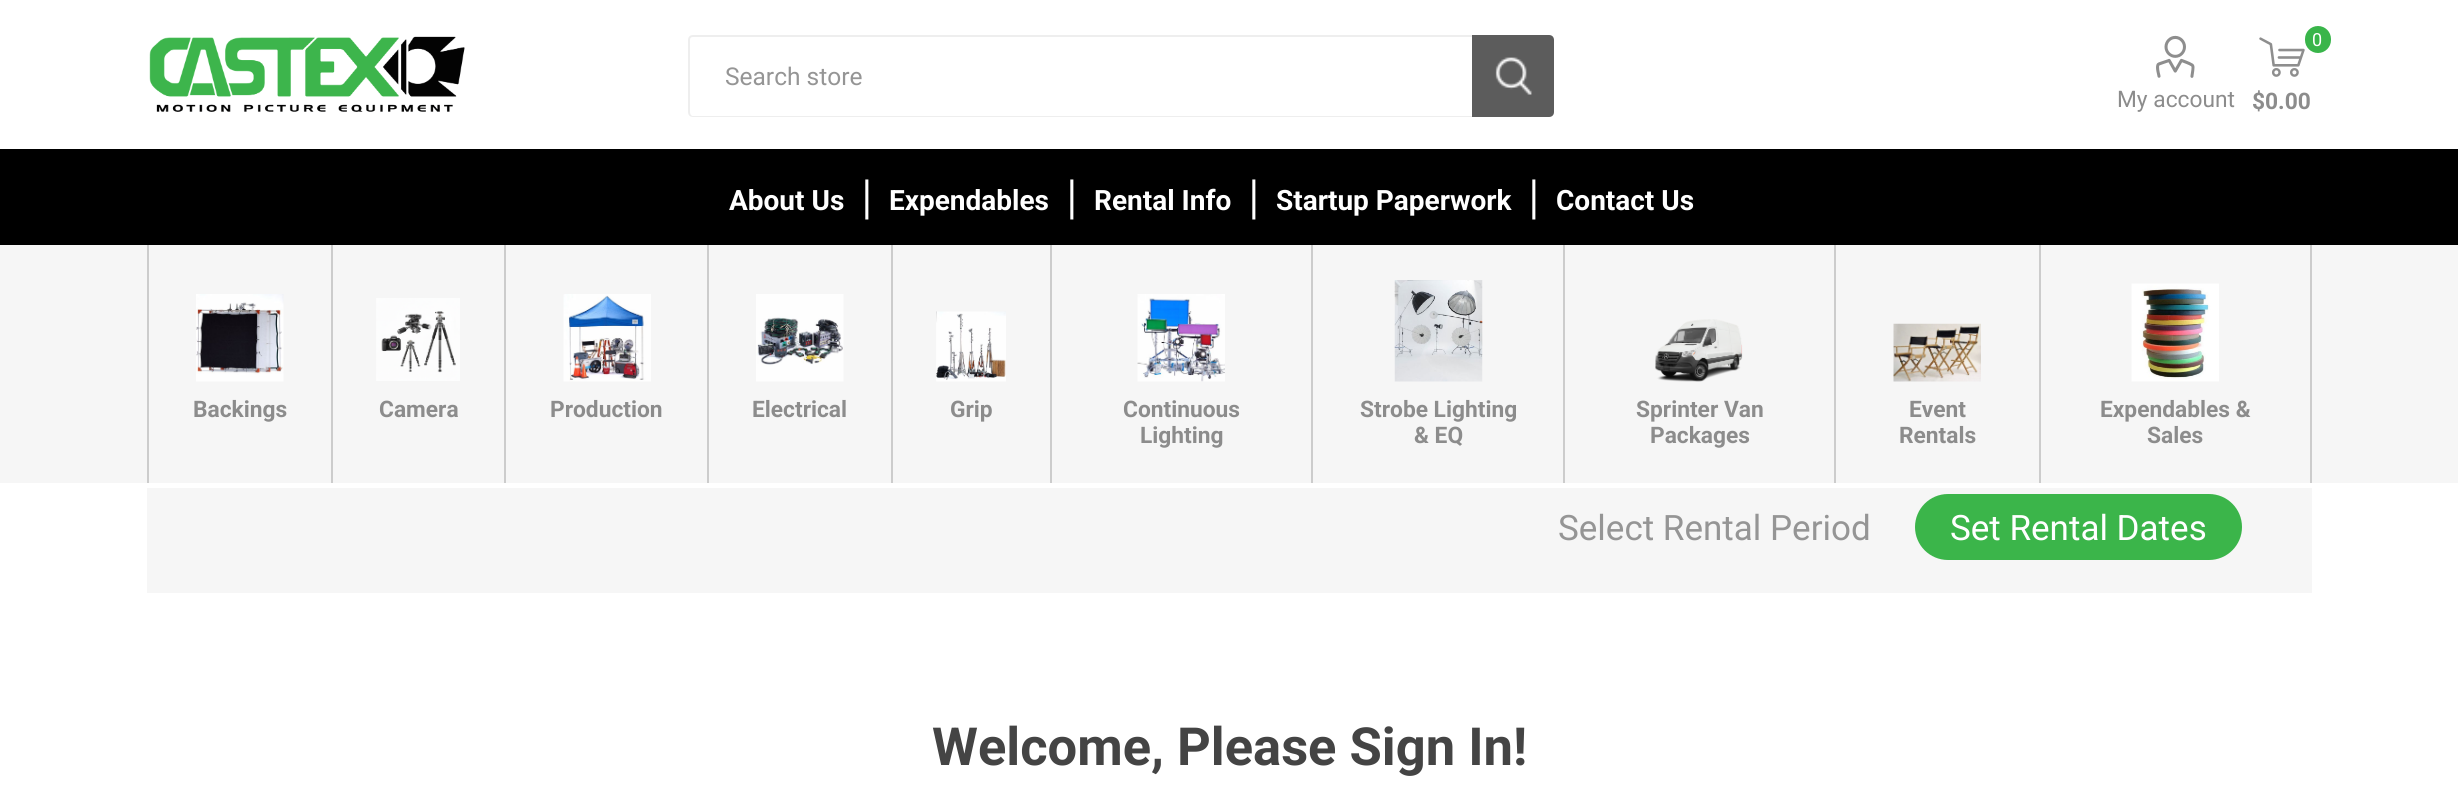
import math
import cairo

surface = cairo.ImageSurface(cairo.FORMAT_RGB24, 2458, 791)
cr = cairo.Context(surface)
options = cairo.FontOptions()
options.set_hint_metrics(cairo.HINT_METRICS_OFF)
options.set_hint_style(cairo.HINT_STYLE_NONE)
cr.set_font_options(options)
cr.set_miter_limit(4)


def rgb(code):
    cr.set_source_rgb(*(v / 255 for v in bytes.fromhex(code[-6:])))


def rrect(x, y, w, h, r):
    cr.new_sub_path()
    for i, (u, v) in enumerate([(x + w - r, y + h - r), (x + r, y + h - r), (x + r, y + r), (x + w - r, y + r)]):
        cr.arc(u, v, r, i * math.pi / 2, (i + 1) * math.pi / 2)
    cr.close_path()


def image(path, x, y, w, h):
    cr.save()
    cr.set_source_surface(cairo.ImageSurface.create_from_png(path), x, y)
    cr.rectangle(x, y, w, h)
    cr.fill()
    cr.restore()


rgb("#ffffff")
cr.paint()
image("img/1.png", 149, 36, 316, 76)
rgb("#eeeeee")
cr.set_fill_rule(cairo.FILL_RULE_EVEN_ODD)
cr.new_path()
cr.move_to(693, 35)
cr.line_to(1472, 35)
cr.line_to(1472, 117)
cr.line_to(693, 117)
cr.curve_to(690, 117, 688, 115, 688, 112)
cr.line_to(688, 40)
cr.curve_to(688, 37, 690, 35, 693, 35)
cr.close_path()
cr.move_to(693, 37)
cr.line_to(1472, 37)
cr.line_to(1472, 116)
cr.line_to(693, 116)
cr.curve_to(691, 116, 690, 114, 690, 112)
cr.line_to(690, 40)
cr.curve_to(690, 38, 691, 37, 693, 37)
cr.close_path()
cr.fill()
rgb("#5c5c5c")
cr.new_path()
cr.move_to(1472, 35)
cr.line_to(1549, 35)
cr.curve_to(1552, 35, 1554, 37, 1554, 40)
cr.line_to(1554, 112)
cr.curve_to(1554, 115, 1552, 117, 1549, 117)
cr.line_to(1472, 117)
cr.close_path()
cr.fill()
image("img/2.png", 1495, 57, 37, 38)
image("img/3.png", 2156, 35, 39, 43)
image("img/4.png", 2259, 37, 46, 40)
rgb("#39b54a")
rrect(2305, 26, 26, 27, 13)
cr.fill()
for x, y, w, h, color in [
    (0, 245, 2458, 238, "#f6f6f6"),
    (0, 149, 2458, 96, "#000000"),
    (147, 245, 2, 238, "#cccccc"),
]:
    rgb(color)
    cr.rectangle(x, y, w, h)
    cr.fill()
image("img/5.png", 196, 294, 88, 88)
cr.rectangle(331, 245, 2, 238)
cr.fill()
image("img/6.png", 376, 298, 84, 83)
cr.rectangle(504, 245, 2, 238)
cr.fill()
image("img/7.png", 563, 294, 88, 88)
cr.rectangle(707, 245, 2, 238)
cr.fill()
image("img/8.png", 756, 294, 88, 88)
cr.rectangle(891, 245, 2, 238)
cr.fill()
image("img/9.png", 936, 311, 70, 71)
cr.rectangle(1050, 245, 2, 238)
cr.fill()
image("img/10.png", 1137, 294, 88, 88)
cr.rectangle(1311, 245, 2, 238)
cr.fill()
image("img/11.png", 1394, 280, 89, 102)
cr.rectangle(1563, 245, 2, 238)
cr.fill()
image("img/12.png", 1655, 319, 88, 63)
cr.rectangle(1834, 245, 2, 238)
cr.fill()
image("img/13.png", 1893, 323, 88, 59)
cr.rectangle(2310, 245, 2, 238)
cr.fill()
cr.rectangle(2039, 245, 2, 238)
cr.fill()
image("img/14.png", 2131, 283, 88, 99)
rgb("#f6f6f6")
cr.rectangle(147, 488, 2165, 105)
cr.fill()
rgb("#3bb54a")
rrect(1915, 494, 327, 66, 33)
cr.fill()
cr.select_font_face("Roboto")
cr.set_font_size(24.5)
rgb("#959595")
cr.move_to(725, 85)
cr.show_text("Search store")
cr.set_font_size(22.75)
rgb("#8c8c8c")
cr.move_to(2117, 107)
cr.show_text("My account")
cr.set_font_size(18)
rgb("#ffffff")
cr.move_to(2312, 46)
cr.show_text("0")
cr.select_font_face("Roboto", cairo.FONT_SLANT_NORMAL, cairo.FONT_WEIGHT_BOLD)
cr.set_font_size(22.75)
rgb("#8c8c8c")
cr.move_to(2252, 109)
cr.show_text("$0.00")
cr.set_font_size(28)
rgb("#ffffff")
cr.move_to(729, 210)
cr.show_text("About Us")
cr.select_font_face("Liberation Serif", cairo.FONT_SLANT_NORMAL, cairo.FONT_WEIGHT_BOLD)
cr.set_font_size(44)
cr.move_to(862, 210)
cr.show_text("|")
cr.select_font_face("Roboto", cairo.FONT_SLANT_NORMAL, cairo.FONT_WEIGHT_BOLD)
cr.set_font_size(28)
cr.move_to(889, 210)
cr.show_text("Expendables")
cr.select_font_face("Liberation Serif", cairo.FONT_SLANT_NORMAL, cairo.FONT_WEIGHT_BOLD)
cr.set_font_size(44)
cr.move_to(1067, 210)
cr.show_text("|")
cr.select_font_face("Roboto", cairo.FONT_SLANT_NORMAL, cairo.FONT_WEIGHT_BOLD)
cr.set_font_size(28)
cr.move_to(1094, 210)
cr.show_text("Rental Info")
cr.select_font_face("Liberation Serif", cairo.FONT_SLANT_NORMAL, cairo.FONT_WEIGHT_BOLD)
cr.set_font_size(44)
cr.move_to(1249, 210)
cr.show_text("|")
cr.select_font_face("Roboto", cairo.FONT_SLANT_NORMAL, cairo.FONT_WEIGHT_BOLD)
cr.set_font_size(28)
cr.move_to(1276, 210)
cr.show_text("Startup Paperwork")
cr.select_font_face("Liberation Serif", cairo.FONT_SLANT_NORMAL, cairo.FONT_WEIGHT_BOLD)
cr.set_font_size(44)
cr.move_to(1529, 210)
cr.show_text("|")
cr.select_font_face("Roboto", cairo.FONT_SLANT_NORMAL, cairo.FONT_WEIGHT_BOLD)
cr.set_font_size(28)
cr.move_to(1556, 210)
cr.show_text("Contact Us")
cr.set_font_size(22.75)
rgb("#8c8c8c")
for x, y, s in [
    (193, 417, "Backings"),
    (379, 417, "Camera"),
    (550, 417, "Production"),
    (752, 417, "Electrical"),
    (950, 417, "Grip"),
    (1123, 417, "Continuous"),
    (1140, 443, "Lighting"),
    (1360, 417, "Strobe Lighting"),
    (1414, 443, "& EQ"),
    (1636, 417, "Sprinter Van"),
    (1650, 443, "Packages"),
    (1909, 417, "Event"),
    (1899, 443, "Rentals"),
    (2100, 417, "Expendables &"),
    (2147, 443, "Sales"),
]:
    cr.move_to(x, y)
    cr.show_text(s)
cr.select_font_face("Roboto")
cr.set_font_size(35)
rgb("#959595")
cr.move_to(1558, 540)
cr.show_text("Select Rental Period")
rgb("#ffffff")
cr.move_to(1950, 540)
cr.show_text("Set Rental Dates")
cr.select_font_face("Roboto", cairo.FONT_SLANT_NORMAL, cairo.FONT_WEIGHT_BOLD)
cr.set_font_size(52.5)
rgb("#444444")
cr.move_to(932, 765)
cr.show_text("Welcome, Please Sign In!")
surface.write_to_png("page.png")
